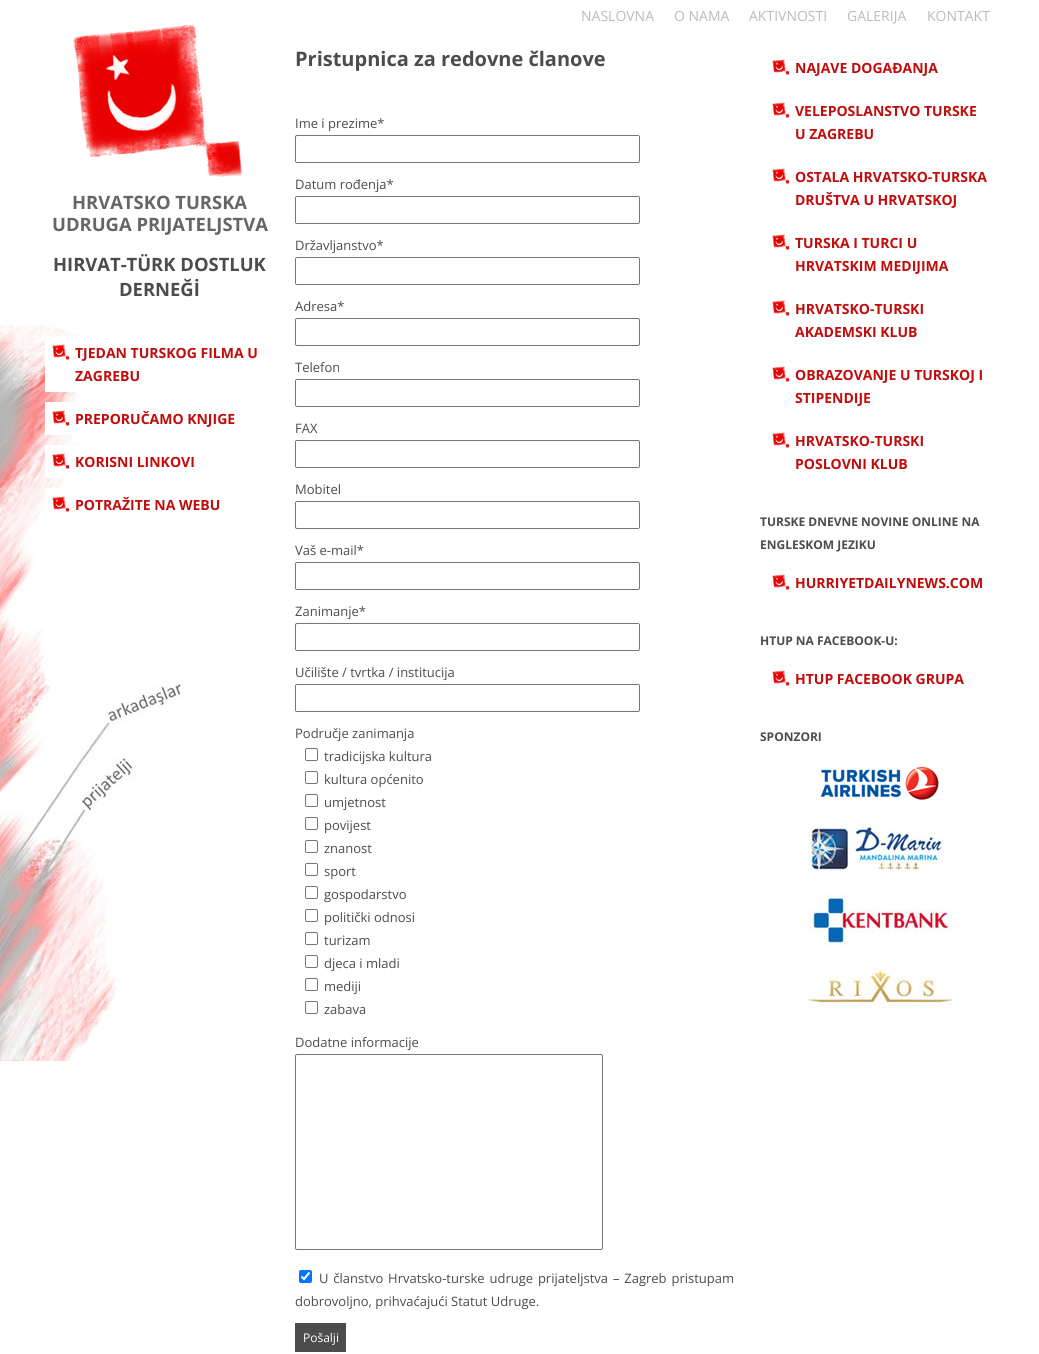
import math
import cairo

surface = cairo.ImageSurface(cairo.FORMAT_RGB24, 1039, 1354)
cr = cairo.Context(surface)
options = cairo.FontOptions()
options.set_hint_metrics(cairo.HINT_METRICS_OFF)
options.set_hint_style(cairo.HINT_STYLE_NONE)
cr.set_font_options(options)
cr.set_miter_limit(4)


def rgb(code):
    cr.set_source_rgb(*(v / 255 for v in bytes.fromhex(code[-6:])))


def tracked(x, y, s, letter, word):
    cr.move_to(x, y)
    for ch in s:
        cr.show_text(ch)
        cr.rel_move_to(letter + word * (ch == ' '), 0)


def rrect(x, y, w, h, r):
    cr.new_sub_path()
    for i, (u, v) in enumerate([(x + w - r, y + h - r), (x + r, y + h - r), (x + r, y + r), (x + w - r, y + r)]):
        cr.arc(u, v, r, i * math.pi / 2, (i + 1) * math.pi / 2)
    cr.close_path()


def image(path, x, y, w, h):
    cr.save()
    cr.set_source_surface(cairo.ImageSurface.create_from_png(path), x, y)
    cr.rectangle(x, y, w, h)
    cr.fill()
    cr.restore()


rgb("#ffffff")
cr.paint()
image("img/1.png", 0, 325, 183, 736)
image("img/2.png", 73, 25, 169, 152)
rgb("#ffffff")
cr.rectangle(45, 336, 43, 56)
cr.fill()
image("img/3.png", 52, 343, 18, 17)
cr.rectangle(45, 402, 35, 33)
cr.fill()
image("img/3.png", 52, 409, 18, 17)
cr.rectangle(45, 445, 35, 33)
cr.fill()
image("img/3.png", 52, 452, 18, 17)
cr.rectangle(45, 488, 19, 21)
cr.fill()
image("img/3.png", 52, 495, 18, 17)
rrect(295.5, 135.5, 344, 27, 1.5)
rgb("#767676")
cr.set_line_width(1)
cr.stroke()
rrect(295.5, 196.5, 344, 27, 1.5)
cr.stroke()
rrect(295.5, 257.5, 344, 27, 1.5)
cr.stroke()
rrect(295.5, 318.5, 344, 27, 1.5)
cr.stroke()
rrect(295.5, 379.5, 344, 27, 1.5)
cr.stroke()
rrect(295.5, 440.5, 344, 27, 1.5)
cr.stroke()
rrect(295.5, 501.5, 344, 27, 1.5)
cr.stroke()
rrect(295.5, 562.5, 344, 27, 1.5)
cr.stroke()
rrect(295.5, 623.5, 344, 27, 1.5)
cr.stroke()
rrect(295.5, 684.5, 344, 27, 1.5)
cr.stroke()
rrect(305.5, 748.5, 12, 12, 1.5)
cr.stroke()
rrect(305.5, 771.5, 12, 12, 1.5)
cr.stroke()
rrect(305.5, 794.5, 12, 12, 1.5)
cr.stroke()
rrect(305.5, 817.5, 12, 12, 1.5)
cr.stroke()
rrect(305.5, 840.5, 12, 12, 1.5)
cr.stroke()
rrect(305.5, 863.5, 12, 12, 1.5)
cr.stroke()
rrect(305.5, 886.5, 12, 12, 1.5)
cr.stroke()
rrect(305.5, 909.5, 12, 12, 1.5)
cr.stroke()
rrect(305.5, 932.5, 12, 12, 1.5)
cr.stroke()
rrect(305.5, 955.5, 12, 12, 1.5)
cr.stroke()
rrect(305.5, 978.5, 12, 12, 1.5)
cr.stroke()
rrect(305.5, 1001.5, 12, 12, 1.5)
cr.stroke()
rrect(295.5, 1054.5, 307, 195, 1.5)
cr.stroke()
rgb("#0075ff")
rrect(299, 1270, 13, 13, 2)
cr.fill()
cr.new_path()
cr.move_to(301.5, 1276.5)
cr.line_to(304, 1279)
cr.line_to(309.5, 1272.5)
rgb("#ffffff")
cr.set_line_width(2.1)
cr.stroke()
rgb("#4c4c4c")
cr.rectangle(295, 1323, 51, 29)
cr.fill()
image("img/3.png", 772, 58, 18, 17)
image("img/3.png", 772, 101, 18, 17)
image("img/3.png", 772, 167, 18, 17)
image("img/3.png", 772, 233, 18, 17)
image("img/3.png", 772, 299, 18, 17)
image("img/3.png", 772, 365, 18, 17)
image("img/3.png", 772, 431, 18, 17)
image("img/3.png", 772, 573, 18, 17)
image("img/3.png", 772, 669, 18, 17)
image("img/4.png", 820, 766, 119, 34)
image("img/5.png", 808, 823, 136, 48)
image("img/6.png", 808, 893, 144, 55)
image("img/7.png", 808, 968, 145, 40)
cr.select_font_face("Open Sans")
cr.set_font_size(14)
rgb("#bbbbbb")
for x, y, s in [
    (581, 21, "NASLOVNA"),
    (674, 21, "O NAMA"),
    (749, 21, "AKTIVNOSTI"),
    (847, 21, "GALERIJA"),
    (927, 21, "KONTAKT"),
]:
    cr.move_to(x, y)
    cr.show_text(s)
cr.select_font_face("Open Sans", cairo.FONT_SLANT_NORMAL, cairo.FONT_WEIGHT_BOLD)
cr.set_font_size(18.4)
rgb("#666666")
cr.move_to(72, 209)
cr.show_text("HRVATSKO TURSKA")
cr.move_to(52, 231)
cr.show_text("UDRUGA PRIJATELJSTVA")
rgb("#4c4c4c")
cr.move_to(53, 271)
cr.show_text("HIRVAT-TÜRK DOSTLUK")
cr.move_to(119, 296)
cr.show_text("DERNEĞİ")
cr.set_font_size(14)
rgb("#c10c0c")
for x, y, s in [
    (75, 358, "TJEDAN TURSKOG FILMA U"),
    (75, 381, "ZAGREBU"),
    (75, 424, "PREPORUČAMO KNJIGE"),
    (75, 467, "KORISNI LINKOVI"),
    (75, 510, "POTRAŽITE NA WEBU"),
]:
    cr.move_to(x, y)
    cr.show_text(s)
cr.set_font_size(20)
rgb("#4c4c4c")
cr.move_to(295, 66)
cr.show_text("Pristupnica za redovne članove")
cr.select_font_face("Open Sans")
cr.set_font_size(13)
for x, y, s in [
    (295, 128, "Ime i prezime*"),
    (295, 189, "Datum rođenja*"),
    (295, 250, "Državljanstvo*"),
    (295, 311, "Adresa*"),
    (295, 372, "Telefon"),
    (295, 433, "FAX"),
    (295, 494, "Mobitel"),
    (295, 555, "Vaš e-mail*"),
    (295, 616, "Zanimanje*"),
    (295, 677, "Učilište / tvrtka / institucija"),
    (295, 738, "Područje zanimanja"),
    (324, 761, "tradicijska kultura"),
    (324, 784, "kultura općenito"),
    (324, 807, "umjetnost"),
    (324, 830, "povijest"),
    (324, 853, "znanost"),
    (324, 876, "sport"),
    (324, 899, "gospodarstvo"),
    (324, 922, "politički odnosi"),
    (324, 945, "turizam"),
    (324, 968, "djeca i mladi"),
    (324, 991, "mediji"),
    (324, 1014, "zabava"),
    (295, 1047, "Dodatne informacije"),
]:
    cr.move_to(x, y)
    cr.show_text(s)
tracked(319, 1283, "U članstvo Hrvatsko-turske udruge prijateljstva – Zagreb pristupam", 0, 1.5)
cr.move_to(295, 1306)
cr.show_text("dobrovoljno, prihvaćajući Statut Udruge.")
cr.set_font_size(12)
rgb("#ffffff")
cr.move_to(303, 1342)
cr.show_text("Pošalji")
cr.select_font_face("Open Sans", cairo.FONT_SLANT_NORMAL, cairo.FONT_WEIGHT_BOLD)
cr.set_font_size(14)
rgb("#c10c0c")
for x, y, s in [
    (795, 73, "NAJAVE DOGAĐANJA"),
    (795, 116, "VELEPOSLANSTVO TURSKE"),
    (795, 139, "U ZAGREBU"),
    (795, 182, "OSTALA HRVATSKO-TURSKA"),
    (795, 205, "DRUŠTVA U HRVATSKOJ"),
    (795, 248, "TURSKA I TURCI U"),
    (795, 271, "HRVATSKIM MEDIJIMA"),
    (795, 314, "HRVATSKO-TURSKI"),
    (795, 337, "AKADEMSKI KLUB"),
    (795, 380, "OBRAZOVANJE U TURSKOJ I"),
    (795, 403, "STIPENDIJE"),
    (795, 446, "HRVATSKO-TURSKI"),
    (795, 469, "POSLOVNI KLUB"),
]:
    cr.move_to(x, y)
    cr.show_text(s)
cr.set_font_size(12)
rgb("#4c4c4c")
cr.move_to(760, 526)
cr.show_text("TURSKE DNEVNE NOVINE ONLINE NA")
cr.move_to(760, 549)
cr.show_text("ENGLESKOM JEZIKU")
cr.set_font_size(14)
rgb("#c10c0c")
cr.move_to(795, 588)
cr.show_text("HURRIYETDAILYNEWS.COM")
cr.set_font_size(12)
rgb("#4c4c4c")
cr.move_to(760, 645)
cr.show_text("HTUP NA FACEBOOK-U:")
cr.set_font_size(14)
rgb("#c10c0c")
cr.move_to(795, 684)
cr.show_text("HTUP FACEBOOK GRUPA")
cr.set_font_size(12)
rgb("#4c4c4c")
cr.move_to(760, 741)
cr.show_text("SPONZORI")
surface.write_to_png("page.png")
